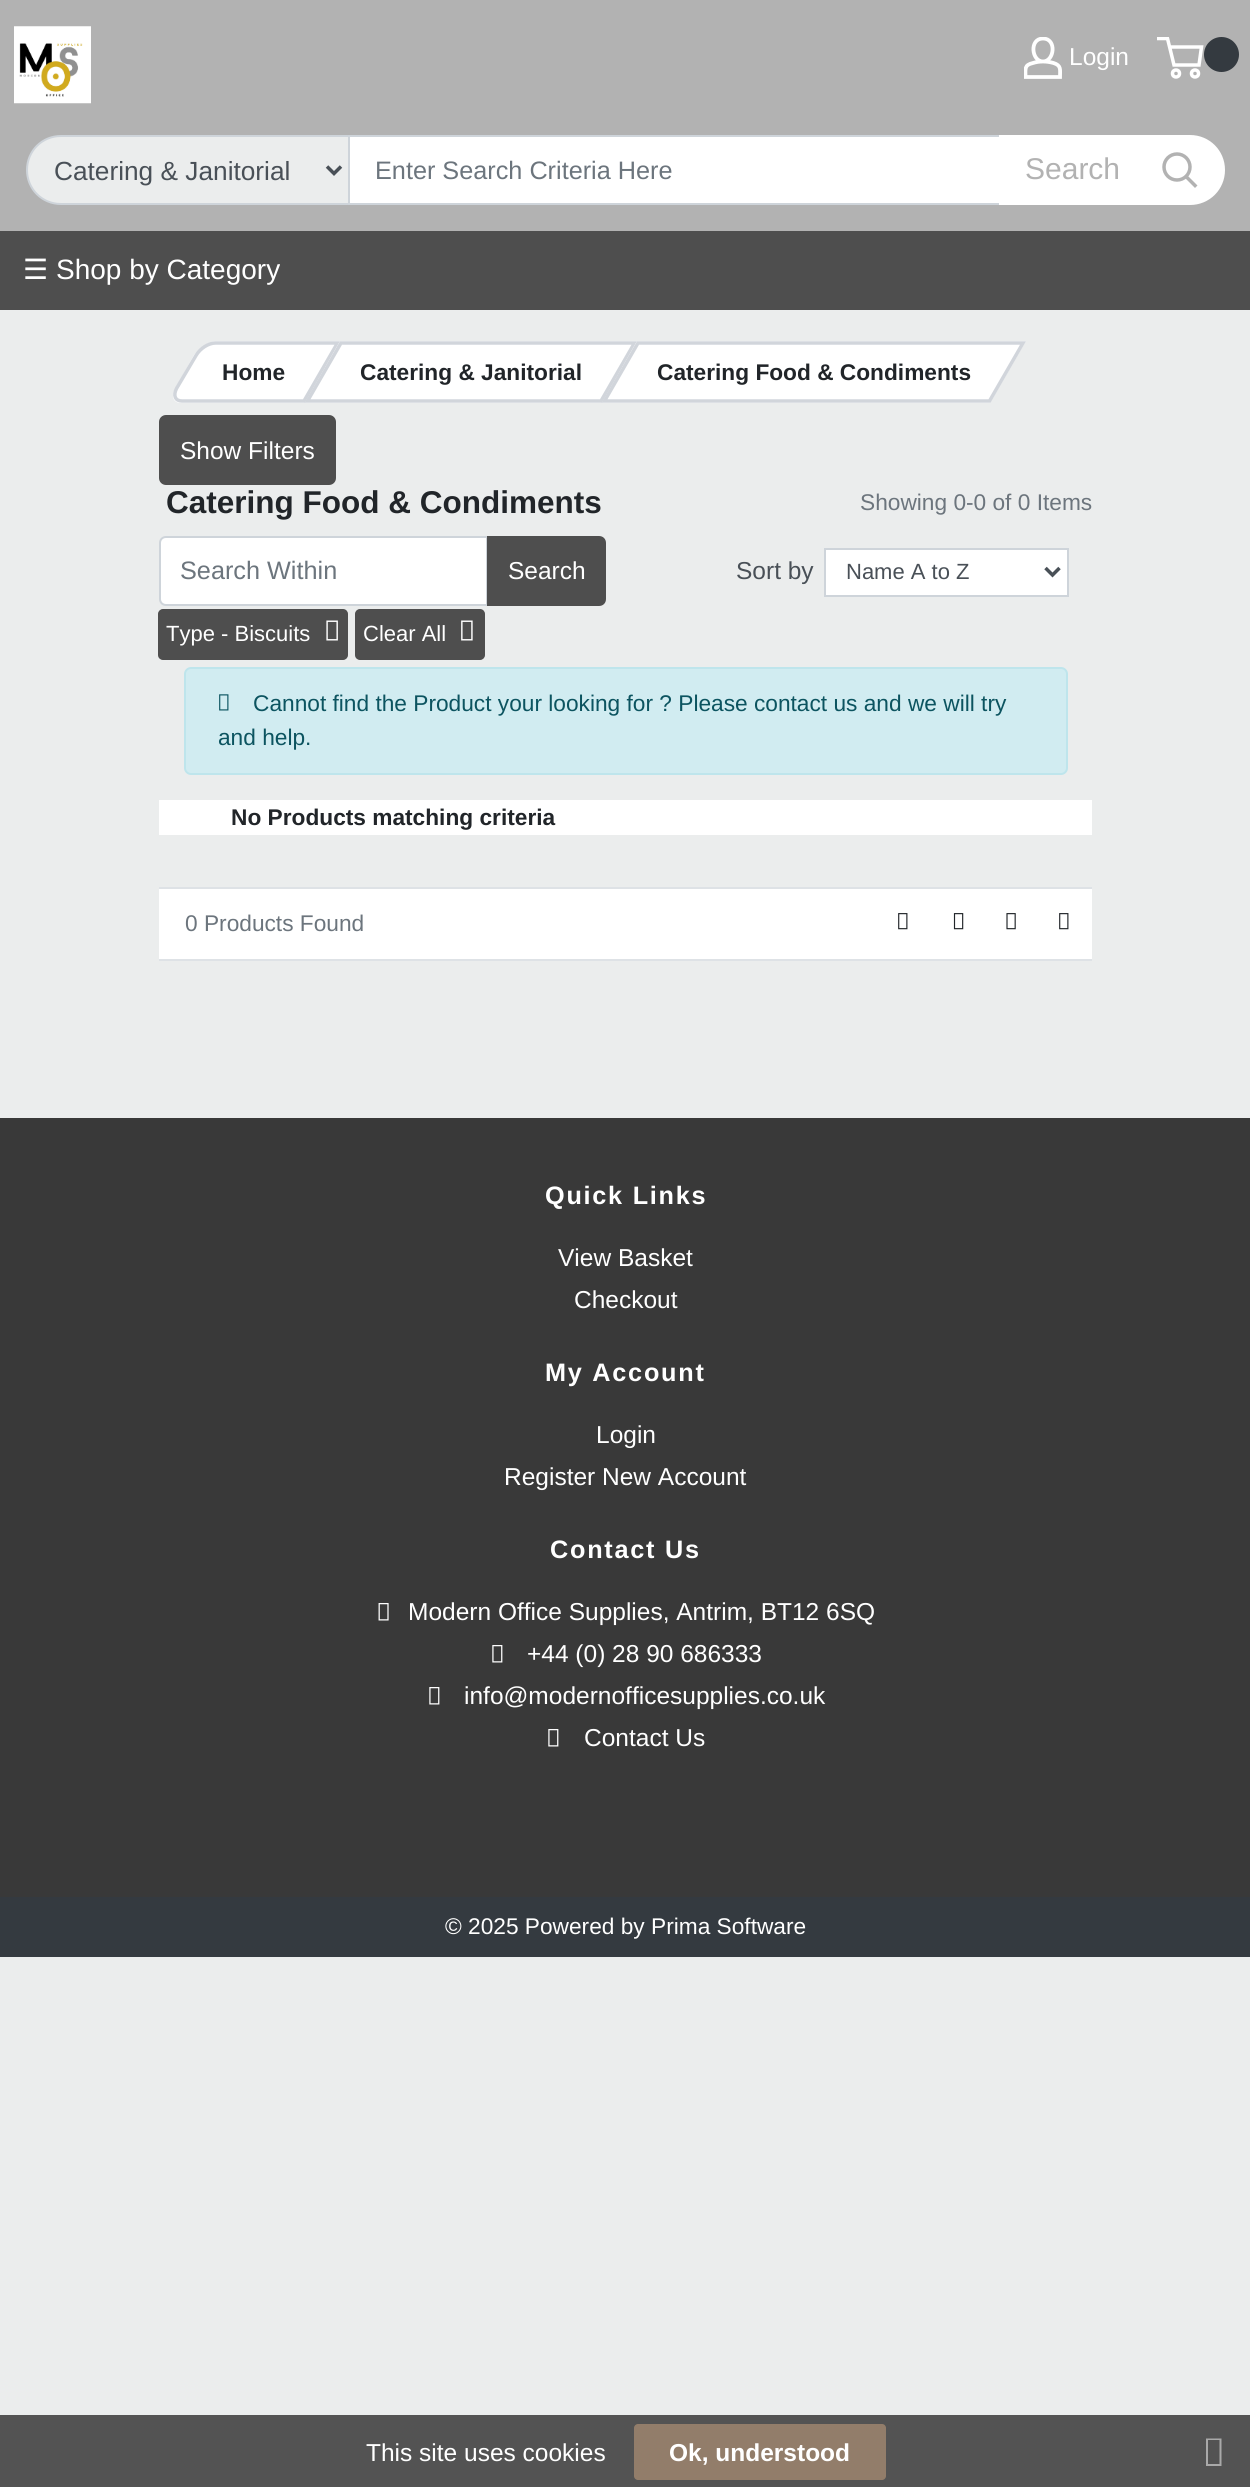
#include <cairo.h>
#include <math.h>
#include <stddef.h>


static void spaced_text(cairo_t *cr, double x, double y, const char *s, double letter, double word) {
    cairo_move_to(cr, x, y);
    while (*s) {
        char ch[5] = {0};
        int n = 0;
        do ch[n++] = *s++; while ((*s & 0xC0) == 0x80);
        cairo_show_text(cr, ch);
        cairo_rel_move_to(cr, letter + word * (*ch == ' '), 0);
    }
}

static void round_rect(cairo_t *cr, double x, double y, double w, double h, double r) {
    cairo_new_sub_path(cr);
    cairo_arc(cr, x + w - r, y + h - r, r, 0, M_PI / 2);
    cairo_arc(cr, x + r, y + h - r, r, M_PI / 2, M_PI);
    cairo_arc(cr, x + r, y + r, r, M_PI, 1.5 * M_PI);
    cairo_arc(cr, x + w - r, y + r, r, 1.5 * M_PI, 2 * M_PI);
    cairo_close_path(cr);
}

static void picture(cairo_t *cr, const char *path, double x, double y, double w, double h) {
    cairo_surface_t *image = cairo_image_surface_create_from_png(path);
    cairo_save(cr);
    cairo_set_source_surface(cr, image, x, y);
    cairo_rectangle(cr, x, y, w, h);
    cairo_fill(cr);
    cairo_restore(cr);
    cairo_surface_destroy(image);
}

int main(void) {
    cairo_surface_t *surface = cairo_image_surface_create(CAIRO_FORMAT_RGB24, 1250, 2487);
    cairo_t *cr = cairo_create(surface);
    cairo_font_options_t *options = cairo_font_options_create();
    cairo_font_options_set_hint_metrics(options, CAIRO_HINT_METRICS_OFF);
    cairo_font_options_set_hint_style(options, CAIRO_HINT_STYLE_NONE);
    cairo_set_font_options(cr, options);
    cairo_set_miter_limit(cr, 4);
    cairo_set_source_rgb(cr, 0.918, 0.929, 0.929);
    cairo_paint(cr);
    cairo_set_source_rgb(cr, 0.698, 0.698, 0.698);
    cairo_rectangle(cr, 0, 0, 1250, 231);
    cairo_fill(cr);
    cairo_save(cr);
    cairo_rectangle(cr, 1024, 37, 38, 42);
    cairo_clip(cr);
    cairo_new_path(cr);
    cairo_move_to(cr, 1043, 61.5);
    cairo_curve_to(cr, 1046.5, 61.5, 1050, 62, 1053.5, 63);
    cairo_curve_to(cr, 1061.5, 65.5, 1060, 69.5, 1060, 77);
    cairo_line_to(cr, 1025.5, 77);
    cairo_curve_to(cr, 1025.5, 69, 1024, 65, 1033, 63);
    cairo_curve_to(cr, 1036, 62, 1039.5, 61.5, 1043, 61.5);
    cairo_close_path(cr);
    cairo_move_to(cr, 1043, 61.5);
    cairo_curve_to(cr, 1031.5, 61.5, 1029, 38.5, 1043, 38.5);
    cairo_curve_to(cr, 1057, 38.5, 1054.5, 61.5, 1043, 61.5);
    cairo_close_path(cr);
    cairo_set_source_rgb(cr, 1, 1, 1);
    cairo_set_line_width(cr, 3.8);
    cairo_stroke(cr);
    cairo_restore(cr);
    cairo_select_font_face(cr, "Liberation Sans", CAIRO_FONT_SLANT_NORMAL, CAIRO_FONT_WEIGHT_NORMAL);
    cairo_set_font_size(cr, 24.5);
    cairo_set_source_rgb(cr, 1, 1, 1);
    cairo_move_to(cr, 1069, 65);
    cairo_show_text(cr, "Login");
    cairo_save(cr);
    cairo_rectangle(cr, 1157, 37, 47, 42);
    cairo_clip(cr);
    cairo_new_path(cr);
    cairo_move_to(cr, 1169.5, 47);
    cairo_line_to(cr, 1201.5, 47);
    cairo_line_to(cr, 1199, 65);
    cairo_line_to(cr, 1174, 65);
    cairo_line_to(cr, 1167.5, 38.5);
    cairo_line_to(cr, 1157, 38.5);
    cairo_set_line_width(cr, 3.5);
    cairo_stroke(cr);
    cairo_restore(cr);
    cairo_set_source_rgb(cr, 0.204, 0.227, 0.251);
    cairo_arc(cr, 1221.5, 54.5, 17.5, 0, 2 * M_PI);
    cairo_fill(cr);
    cairo_arc(cr, 1176, 73.5, 3.5, 0, 2 * M_PI);
    cairo_set_source_rgb(cr, 1, 1, 1);
    cairo_set_line_width(cr, 3.5);
    cairo_stroke(cr);
    cairo_arc(cr, 1195, 73.5, 3.5, 0, 2 * M_PI);
    cairo_stroke(cr);
    picture(cr, "img1.png", 14, 26, 77, 78);
    cairo_set_source_rgb(cr, 0.918, 0.929, 0.929);
    cairo_new_path(cr);
    cairo_move_to(cr, 61, 136);
    cairo_line_to(cr, 347.5, 136);
    cairo_curve_to(cr, 348.5, 136, 349, 136.5, 349, 137.5);
    cairo_line_to(cr, 349, 202.5);
    cairo_curve_to(cr, 349, 203.5, 348.5, 204, 347.5, 204);
    cairo_line_to(cr, 61, 204);
    cairo_curve_to(cr, 42, 204, 27, 189, 27, 170);
    cairo_curve_to(cr, 27, 151, 42, 136, 61, 136);
    cairo_close_path(cr);
    cairo_fill_preserve(cr);
    cairo_set_source_rgb(cr, 0.808, 0.831, 0.855);
    cairo_set_line_width(cr, 2);
    cairo_stroke(cr);
    cairo_new_path(cr);
    cairo_move_to(cr, 327, 166.5);
    cairo_line_to(cr, 334, 173.5);
    cairo_line_to(cr, 341, 166.5);
    cairo_set_source_rgb(cr, 0.286, 0.314, 0.341);
    cairo_set_line_width(cr, 3.5);
    cairo_stroke(cr);
    cairo_set_font_size(cr, 26.25);
    cairo_move_to(cr, 54, 180);
    cairo_show_text(cr, "Catering & Janitorial");
    cairo_set_source_rgb(cr, 1, 1, 1);
    cairo_rectangle(cr, 349, 136, 651, 68);
    cairo_fill_preserve(cr);
    cairo_set_source_rgb(cr, 0.808, 0.831, 0.855);
    cairo_set_line_width(cr, 2);
    cairo_stroke(cr);
    cairo_set_font_size(cr, 25.25);
    cairo_set_source_rgb(cr, 0.424, 0.459, 0.49);
    cairo_move_to(cr, 375, 179);
    cairo_show_text(cr, "Enter Search Criteria Here");
    cairo_set_source_rgb(cr, 1, 1, 1);
    cairo_new_path(cr);
    cairo_move_to(cr, 999, 135);
    cairo_line_to(cr, 1190, 135);
    cairo_curve_to(cr, 1209.5, 135, 1225, 150.5, 1225, 170);
    cairo_curve_to(cr, 1225, 189.5, 1209.5, 205, 1190, 205);
    cairo_line_to(cr, 999, 205);
    cairo_close_path(cr);
    cairo_fill(cr);
    cairo_set_font_size(cr, 30);
    cairo_set_source_rgb(cr, 0.698, 0.698, 0.698);
    cairo_move_to(cr, 1025, 179);
    cairo_show_text(cr, "Search");
    cairo_new_path(cr);
    cairo_move_to(cr, 1195, 185.5);
    cairo_line_to(cr, 1186.5, 177);
    cairo_set_line_width(cr, 3.5);
    cairo_set_line_cap(cr, CAIRO_LINE_CAP_SQUARE);
    cairo_stroke(cr);
    cairo_arc(cr, 1177, 167, 13, 0, 2 * M_PI);
    cairo_set_line_cap(cr, CAIRO_LINE_CAP_BUTT);
    cairo_stroke(cr);
    cairo_set_source_rgb(cr, 0.306, 0.306, 0.306);
    cairo_rectangle(cr, 0, 231, 1250, 79);
    cairo_fill(cr);
    cairo_select_font_face(cr, "DejaVu Sans", CAIRO_FONT_SLANT_NORMAL, CAIRO_FONT_WEIGHT_NORMAL);
    cairo_set_font_size(cr, 28);
    cairo_set_source_rgb(cr, 1, 1, 1);
    cairo_move_to(cr, 23, 279);
    cairo_show_text(cr, "☰");
    cairo_select_font_face(cr, "Liberation Sans", CAIRO_FONT_SLANT_NORMAL, CAIRO_FONT_WEIGHT_NORMAL);
    cairo_move_to(cr, 56, 279);
    cairo_show_text(cr, "Shop by Category");
    cairo_new_path(cr);
    cairo_move_to(cr, 216, 341);
    cairo_line_to(cr, 340, 341);
    cairo_line_to(cr, 305, 403);
    cairo_line_to(cr, 181, 403);
    cairo_curve_to(cr, 173, 403, 171, 396, 175, 389);
    cairo_line_to(cr, 194, 355);
    cairo_curve_to(cr, 199, 348, 209, 341, 216, 341);
    cairo_close_path(cr);
    cairo_fill(cr);
    cairo_new_path(cr);
    cairo_move_to(cr, 215.5, 343);
    cairo_line_to(cr, 337.5, 343);
    cairo_line_to(cr, 304, 401);
    cairo_line_to(cr, 182, 401);
    cairo_curve_to(cr, 175, 401, 173, 395.5, 176.5, 388.5);
    cairo_line_to(cr, 196, 355.5);
    cairo_curve_to(cr, 200, 348.5, 208.5, 343, 215.5, 343);
    cairo_close_path(cr);
    cairo_set_source_rgb(cr, 0.82, 0.835, 0.859);
    cairo_stroke(cr);
    cairo_select_font_face(cr, "Liberation Sans", CAIRO_FONT_SLANT_NORMAL, CAIRO_FONT_WEIGHT_BOLD);
    cairo_set_font_size(cr, 22.7);
    cairo_set_source_rgb(cr, 0.129, 0.145, 0.161);
    cairo_move_to(cr, 222, 380);
    cairo_show_text(cr, "Home");
    cairo_set_source_rgb(cr, 1, 1, 1);
    cairo_new_path(cr);
    cairo_move_to(cr, 340, 341);
    cairo_line_to(cr, 637, 341);
    cairo_line_to(cr, 602, 403);
    cairo_line_to(cr, 305, 403);
    cairo_close_path(cr);
    cairo_fill(cr);
    cairo_new_path(cr);
    cairo_move_to(cr, 341, 343);
    cairo_line_to(cr, 634.5, 343);
    cairo_line_to(cr, 601, 401);
    cairo_line_to(cr, 307.5, 401);
    cairo_close_path(cr);
    cairo_set_source_rgb(cr, 0.82, 0.835, 0.859);
    cairo_stroke(cr);
    cairo_set_source_rgb(cr, 0.129, 0.145, 0.161);
    cairo_move_to(cr, 360, 380);
    cairo_show_text(cr, "Catering & Janitorial");
    cairo_set_source_rgb(cr, 1, 1, 1);
    cairo_new_path(cr);
    cairo_move_to(cr, 637, 341);
    cairo_line_to(cr, 1026, 341);
    cairo_line_to(cr, 990, 403);
    cairo_line_to(cr, 602, 403);
    cairo_close_path(cr);
    cairo_fill(cr);
    cairo_new_path(cr);
    cairo_move_to(cr, 638, 343);
    cairo_line_to(cr, 1023, 343);
    cairo_line_to(cr, 989.5, 401);
    cairo_line_to(cr, 604.5, 401);
    cairo_close_path(cr);
    cairo_set_source_rgb(cr, 0.82, 0.835, 0.859);
    cairo_stroke(cr);
    cairo_set_source_rgb(cr, 0.129, 0.145, 0.161);
    cairo_move_to(cr, 657, 380);
    cairo_show_text(cr, "Catering Food & Condiments");
    cairo_set_source_rgb(cr, 0.306, 0.306, 0.306);
    round_rect(cr, 160, 416, 175, 68, 6);
    cairo_fill_preserve(cr);
    cairo_set_line_width(cr, 2);
    cairo_stroke(cr);
    cairo_select_font_face(cr, "Liberation Sans", CAIRO_FONT_SLANT_NORMAL, CAIRO_FONT_WEIGHT_NORMAL);
    cairo_set_font_size(cr, 24.5);
    cairo_set_source_rgb(cr, 1, 1, 1);
    cairo_move_to(cr, 180, 459);
    cairo_show_text(cr, "Show Filters");
    cairo_select_font_face(cr, "Liberation Sans", CAIRO_FONT_SLANT_NORMAL, CAIRO_FONT_WEIGHT_BOLD);
    cairo_set_font_size(cr, 31.5);
    cairo_set_source_rgb(cr, 0.129, 0.145, 0.161);
    cairo_move_to(cr, 166, 513);
    cairo_show_text(cr, "Catering Food & Condiments");
    cairo_select_font_face(cr, "Liberation Sans", CAIRO_FONT_SLANT_NORMAL, CAIRO_FONT_WEIGHT_NORMAL);
    cairo_set_font_size(cr, 22.7);
    cairo_set_source_rgb(cr, 0.424, 0.459, 0.49);
    cairo_move_to(cr, 860, 510);
    cairo_show_text(cr, "Showing 0-0 of 0 Items");
    cairo_set_source_rgb(cr, 1, 1, 1);
    cairo_new_path(cr);
    cairo_move_to(cr, 165, 537);
    cairo_line_to(cr, 487, 537);
    cairo_line_to(cr, 487, 604);
    cairo_line_to(cr, 165, 604);
    cairo_curve_to(cr, 163, 604, 161, 602, 161, 600);
    cairo_line_to(cr, 161, 541);
    cairo_curve_to(cr, 161, 539, 163, 537, 165, 537);
    cairo_close_path(cr);
    cairo_fill(cr);
    cairo_new_path(cr);
    cairo_move_to(cr, 166, 537);
    cairo_line_to(cr, 487, 537);
    cairo_line_to(cr, 487, 605);
    cairo_line_to(cr, 166, 605);
    cairo_curve_to(cr, 162.5, 605, 160, 602.5, 160, 599);
    cairo_line_to(cr, 160, 543);
    cairo_curve_to(cr, 160, 539.5, 162.5, 537, 166, 537);
    cairo_close_path(cr);
    cairo_set_source_rgb(cr, 0.808, 0.831, 0.855);
    cairo_stroke(cr);
    cairo_set_font_size(cr, 25.25);
    cairo_set_source_rgb(cr, 0.424, 0.459, 0.49);
    cairo_move_to(cr, 180, 579);
    cairo_show_text(cr, "Search Within");
    cairo_set_source_rgb(cr, 0.306, 0.306, 0.306);
    cairo_new_path(cr);
    cairo_move_to(cr, 488, 537);
    cairo_line_to(cr, 599, 537);
    cairo_curve_to(cr, 602.5, 537, 605, 539.5, 605, 543);
    cairo_line_to(cr, 605, 599);
    cairo_curve_to(cr, 605, 602.5, 602.5, 605, 599, 605);
    cairo_line_to(cr, 488, 605);
    cairo_close_path(cr);
    cairo_fill_preserve(cr);
    cairo_stroke(cr);
    cairo_set_font_size(cr, 24.5);
    cairo_set_source_rgb(cr, 1, 1, 1);
    cairo_move_to(cr, 508, 579);
    cairo_show_text(cr, "Search");
    cairo_set_source_rgb(cr, 0.286, 0.314, 0.341);
    cairo_move_to(cr, 736, 579);
    cairo_show_text(cr, "Sort by");
    cairo_set_source_rgb(cr, 1, 1, 1);
    cairo_rectangle(cr, 825, 549, 243, 47);
    cairo_fill_preserve(cr);
    cairo_set_source_rgb(cr, 0.808, 0.831, 0.855);
    cairo_stroke(cr);
    cairo_new_path(cr);
    cairo_move_to(cr, 1045.5, 568);
    cairo_line_to(cr, 1052.5, 575);
    cairo_line_to(cr, 1059.5, 568);
    cairo_set_source_rgb(cr, 0.286, 0.314, 0.341);
    cairo_set_line_width(cr, 3.5);
    cairo_stroke(cr);
    cairo_set_font_size(cr, 22);
    cairo_move_to(cr, 846, 579);
    cairo_show_text(cr, "Name A to Z");
    cairo_set_source_rgb(cr, 0.306, 0.306, 0.306);
    round_rect(cr, 159, 610, 188, 49, 4);
    cairo_fill_preserve(cr);
    cairo_set_line_width(cr, 2);
    cairo_stroke(cr);
    cairo_set_source_rgb(cr, 1, 1, 1);
    cairo_move_to(cr, 166, 641);
    cairo_show_text(cr, "Type - Biscuits");
    picture(cr, "img2.png", 326, 620, 12, 21);
    cairo_set_source_rgb(cr, 0.306, 0.306, 0.306);
    round_rect(cr, 356, 610, 128, 49, 4);
    cairo_fill_preserve(cr);
    cairo_stroke(cr);
    cairo_set_source_rgb(cr, 1, 1, 1);
    cairo_move_to(cr, 363, 641);
    cairo_show_text(cr, "Clear All");
    picture(cr, "img3.png", 461, 620, 12, 21);
    cairo_set_source_rgb(cr, 0.82, 0.925, 0.945);
    round_rect(cr, 185, 668, 882, 106, 6);
    cairo_fill_preserve(cr);
    cairo_set_source_rgb(cr, 0.745, 0.898, 0.922);
    cairo_stroke(cr);
    picture(cr, "img4.png", 219, 694, 10, 17);
    cairo_set_font_size(cr, 22.7);
    cairo_set_source_rgb(cr, 0.047, 0.329, 0.376);
    cairo_move_to(cr, 253, 711);
    cairo_show_text(cr, "Cannot find the Product your looking for ? Please contact us and we will try");
    cairo_move_to(cr, 218, 745);
    cairo_show_text(cr, "and help.");
    cairo_set_source_rgb(cr, 1, 1, 1);
    cairo_rectangle(cr, 159, 800, 933, 35);
    cairo_fill(cr);
    cairo_select_font_face(cr, "Liberation Sans", CAIRO_FONT_SLANT_NORMAL, CAIRO_FONT_WEIGHT_BOLD);
    cairo_set_source_rgb(cr, 0.129, 0.145, 0.161);
    cairo_move_to(cr, 231, 825);
    cairo_show_text(cr, "No Products matching criteria");
    cairo_set_source_rgb(cr, 1, 1, 1);
    cairo_rectangle(cr, 159, 889, 933, 70);
    cairo_fill(cr);
    cairo_set_source_rgb(cr, 0.871, 0.886, 0.902);
    cairo_rectangle(cr, 159, 887, 933, 2);
    cairo_fill(cr);
    cairo_rectangle(cr, 159, 959, 933, 2);
    cairo_fill(cr);
    cairo_select_font_face(cr, "Liberation Sans", CAIRO_FONT_SLANT_NORMAL, CAIRO_FONT_WEIGHT_NORMAL);
    cairo_set_source_rgb(cr, 0.424, 0.459, 0.49);
    cairo_move_to(cr, 185, 931);
    cairo_show_text(cr, "0 Products Found");
    picture(cr, "img5.png", 898, 913, 10, 17);
    picture(cr, "img6.png", 953, 913, 11, 17);
    picture(cr, "img7.png", 1006, 913, 10, 17);
    picture(cr, "img5.png", 1059, 913, 10, 17);
    cairo_set_source_rgb(cr, 0.224, 0.224, 0.224);
    cairo_rectangle(cr, 0, 1118, 1250, 779);
    cairo_fill(cr);
    cairo_select_font_face(cr, "Liberation Sans", CAIRO_FONT_SLANT_NORMAL, CAIRO_FONT_WEIGHT_BOLD);
    cairo_set_font_size(cr, 25.25);
    cairo_set_source_rgb(cr, 1, 1, 1);
    spaced_text(cr, 545, 1204, "Quick Links", 1.75, 0);
    cairo_select_font_face(cr, "Liberation Sans", CAIRO_FONT_SLANT_NORMAL, CAIRO_FONT_WEIGHT_NORMAL);
    cairo_set_font_size(cr, 24.5);
    cairo_move_to(cr, 558, 1266);
    cairo_show_text(cr, "View Basket");
    cairo_move_to(cr, 574, 1308);
    cairo_show_text(cr, "Checkout");
    cairo_select_font_face(cr, "Liberation Sans", CAIRO_FONT_SLANT_NORMAL, CAIRO_FONT_WEIGHT_BOLD);
    cairo_set_font_size(cr, 25.25);
    spaced_text(cr, 545, 1381, "My Account", 1.75, 0);
    cairo_select_font_face(cr, "Liberation Sans", CAIRO_FONT_SLANT_NORMAL, CAIRO_FONT_WEIGHT_NORMAL);
    cairo_set_font_size(cr, 24.5);
    cairo_move_to(cr, 596, 1443);
    cairo_show_text(cr, "Login");
    cairo_move_to(cr, 504, 1485);
    cairo_show_text(cr, "Register New Account");
    cairo_select_font_face(cr, "Liberation Sans", CAIRO_FONT_SLANT_NORMAL, CAIRO_FONT_WEIGHT_BOLD);
    cairo_set_font_size(cr, 25.25);
    spaced_text(cr, 550, 1558, "Contact Us", 1.75, 0);
    picture(cr, "img8.png", 378, 1603, 11, 18);
    cairo_select_font_face(cr, "Liberation Sans", CAIRO_FONT_SLANT_NORMAL, CAIRO_FONT_WEIGHT_NORMAL);
    cairo_set_font_size(cr, 24.5);
    cairo_move_to(cr, 408, 1620);
    cairo_show_text(cr, "Modern Office Supplies, Antrim, BT12 6SQ");
    picture(cr, "img9.png", 492, 1645, 11, 18);
    cairo_move_to(cr, 527, 1662);
    cairo_show_text(cr, "+44 (0) 28 90 686333");
    picture(cr, "img9.png", 429, 1687, 11, 18);
    cairo_move_to(cr, 464, 1704);
    cairo_show_text(cr, "info@modernofficesupplies.co.uk");
    picture(cr, "img9.png", 548, 1729, 11, 18);
    cairo_move_to(cr, 584, 1746);
    cairo_show_text(cr, "Contact Us");
    cairo_set_source_rgb(cr, 0.204, 0.227, 0.251);
    cairo_rectangle(cr, 0, 1897, 1250, 60);
    cairo_fill(cr);
    cairo_set_font_size(cr, 22.7);
    cairo_set_source_rgb(cr, 1, 1, 1);
    cairo_move_to(cr, 445, 1934);
    cairo_show_text(cr, "© 2025 Powered by Prima Software");
    cairo_set_source_rgb(cr, 0.325, 0.325, 0.325);
    cairo_rectangle(cr, 0, 2415, 1250, 72);
    cairo_fill(cr);
    cairo_set_font_size(cr, 24.5);
    cairo_set_source_rgb(cr, 1, 1, 1);
    cairo_move_to(cr, 366, 2461);
    cairo_show_text(cr, "This site uses cookies");
    cairo_set_source_rgb(cr, 0.573, 0.49, 0.416);
    round_rect(cr, 634, 2424, 252, 56, 4);
    cairo_fill(cr);
    cairo_select_font_face(cr, "Liberation Sans", CAIRO_FONT_SLANT_NORMAL, CAIRO_FONT_WEIGHT_BOLD);
    cairo_set_source_rgb(cr, 1, 1, 1);
    cairo_move_to(cr, 669, 2461);
    cairo_show_text(cr, "Ok, understood");
    cairo_set_source_rgb(cr, 0.663, 0.663, 0.663);
    cairo_new_path(cr);
    cairo_move_to(cr, 1206, 2466);
    cairo_line_to(cr, 1206, 2438.5);
    cairo_line_to(cr, 1221.5, 2438.5);
    cairo_line_to(cr, 1221.5, 2466);
    cairo_close_path(cr);
    cairo_move_to(cr, 1208, 2464);
    cairo_line_to(cr, 1219.5, 2464);
    cairo_line_to(cr, 1219.5, 2440);
    cairo_line_to(cr, 1208, 2440);
    cairo_close_path(cr);
    cairo_fill(cr);
    cairo_surface_write_to_png(surface, "page.png");
    cairo_font_options_destroy(options);
    cairo_destroy(cr);
    cairo_surface_destroy(surface);
    return 0;
}
